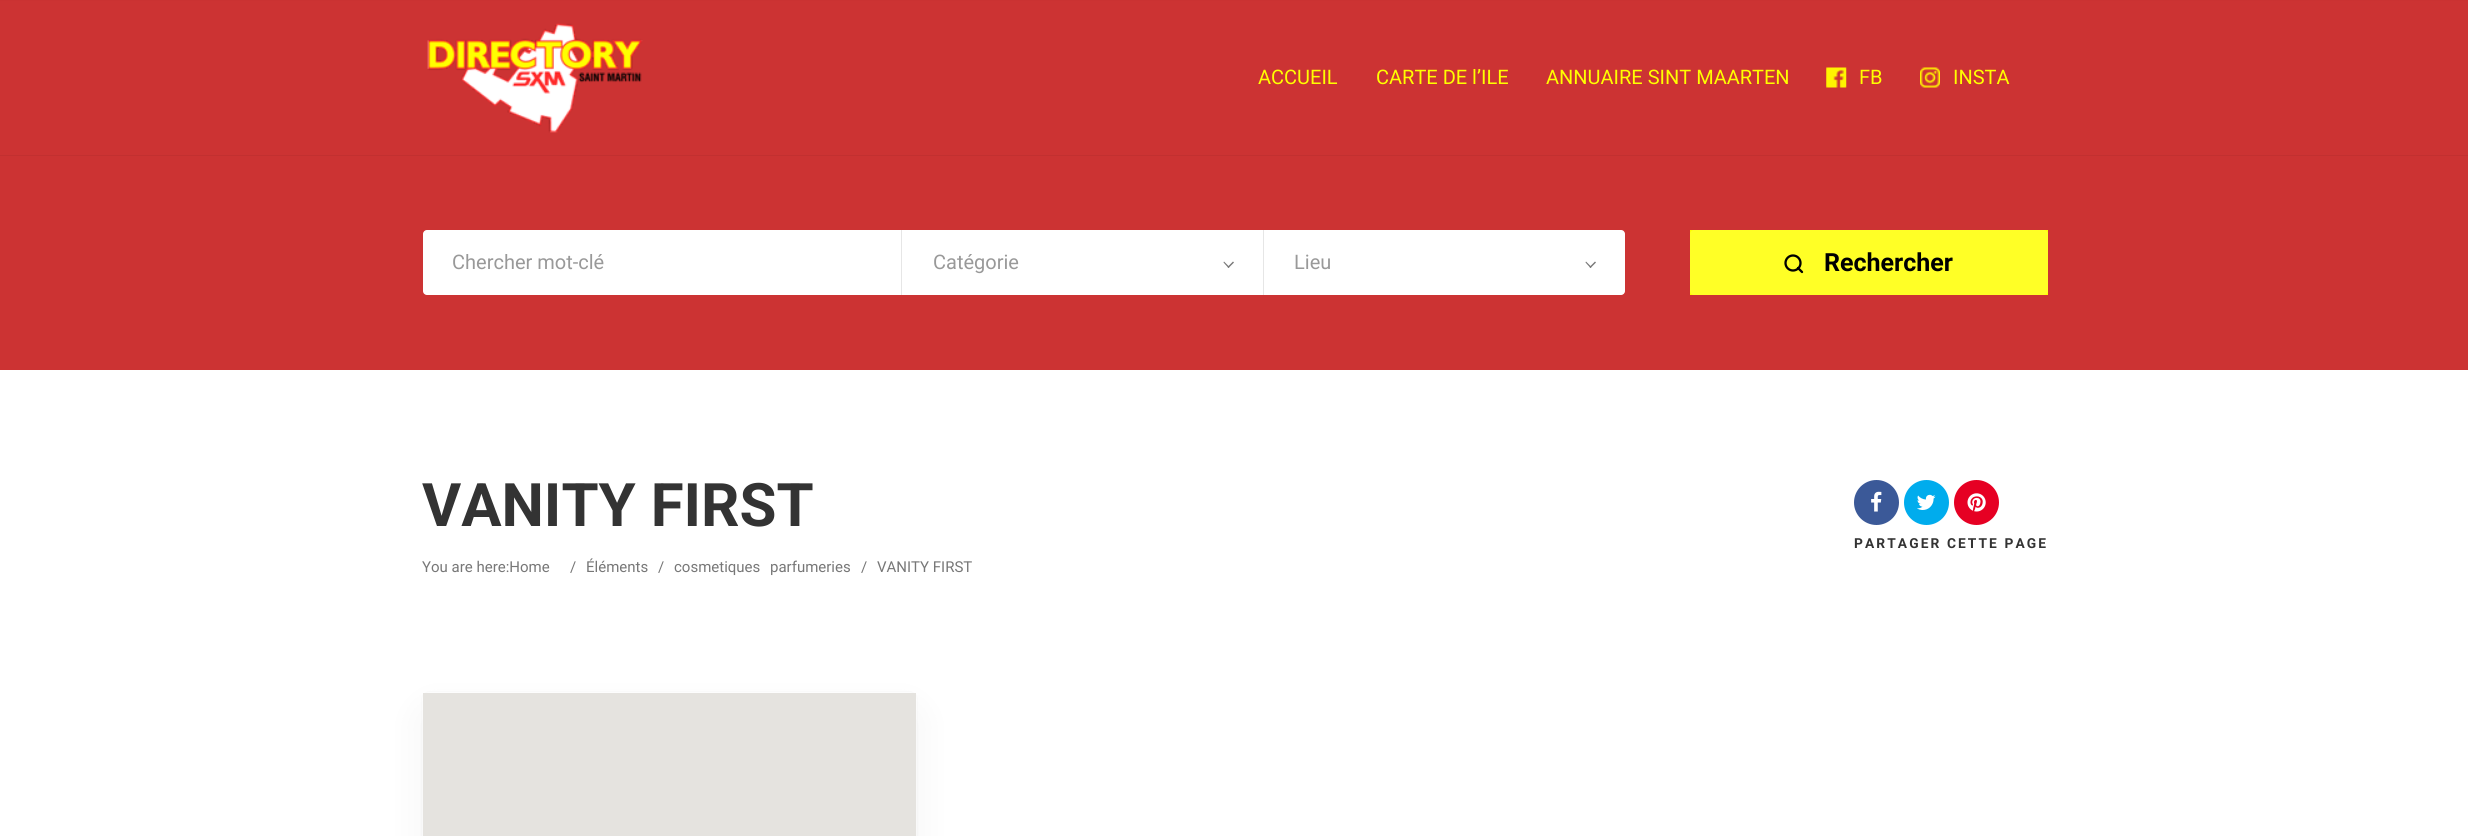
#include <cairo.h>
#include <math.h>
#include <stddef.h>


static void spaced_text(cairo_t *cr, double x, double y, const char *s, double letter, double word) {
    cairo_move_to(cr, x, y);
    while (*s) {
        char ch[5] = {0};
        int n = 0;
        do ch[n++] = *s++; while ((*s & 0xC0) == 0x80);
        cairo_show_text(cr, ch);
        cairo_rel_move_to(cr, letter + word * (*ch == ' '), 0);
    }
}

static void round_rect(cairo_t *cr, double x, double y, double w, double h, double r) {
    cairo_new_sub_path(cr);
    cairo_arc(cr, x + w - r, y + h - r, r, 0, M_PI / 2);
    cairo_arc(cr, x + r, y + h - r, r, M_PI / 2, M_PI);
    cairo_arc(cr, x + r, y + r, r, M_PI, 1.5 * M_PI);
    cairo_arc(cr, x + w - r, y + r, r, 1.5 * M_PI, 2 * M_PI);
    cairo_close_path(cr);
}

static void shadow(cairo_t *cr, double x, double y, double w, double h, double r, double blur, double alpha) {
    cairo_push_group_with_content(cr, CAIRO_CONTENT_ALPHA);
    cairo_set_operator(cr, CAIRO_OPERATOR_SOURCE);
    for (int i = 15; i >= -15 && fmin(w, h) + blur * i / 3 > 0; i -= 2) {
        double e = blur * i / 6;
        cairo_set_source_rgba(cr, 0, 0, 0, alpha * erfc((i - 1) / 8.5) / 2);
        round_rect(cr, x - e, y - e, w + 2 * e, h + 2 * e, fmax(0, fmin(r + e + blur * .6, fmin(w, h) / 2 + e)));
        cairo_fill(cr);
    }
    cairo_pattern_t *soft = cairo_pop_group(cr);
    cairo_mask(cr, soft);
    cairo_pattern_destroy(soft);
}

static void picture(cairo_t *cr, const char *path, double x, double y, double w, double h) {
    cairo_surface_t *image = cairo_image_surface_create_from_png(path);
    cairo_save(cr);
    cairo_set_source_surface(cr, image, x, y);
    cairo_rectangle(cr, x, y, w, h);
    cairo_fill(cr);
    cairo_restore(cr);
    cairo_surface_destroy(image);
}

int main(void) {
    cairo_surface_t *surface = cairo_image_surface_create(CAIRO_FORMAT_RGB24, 2468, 836);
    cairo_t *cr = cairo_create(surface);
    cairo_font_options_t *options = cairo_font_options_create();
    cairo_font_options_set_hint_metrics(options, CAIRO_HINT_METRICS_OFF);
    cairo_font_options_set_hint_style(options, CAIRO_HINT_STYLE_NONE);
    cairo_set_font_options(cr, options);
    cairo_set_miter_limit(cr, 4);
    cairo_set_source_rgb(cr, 1, 1, 1);
    cairo_paint(cr);
    cairo_set_source_rgb(cr, 0.792, 0.196, 0.196);
    cairo_new_path(cr);
    cairo_move_to(cr, 0, 0);
    cairo_line_to(cr, 0, 1);
    cairo_line_to(cr, 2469, 1);
    cairo_line_to(cr, 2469, -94);
    cairo_line_to(cr, 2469, 0);
    cairo_close_path(cr);
    cairo_fill(cr);
    cairo_set_source_rgb(cr, 0.761, 0.188, 0.188);
    cairo_new_path(cr);
    cairo_move_to(cr, 0, 155);
    cairo_line_to(cr, 0, 156);
    cairo_line_to(cr, 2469, 156);
    cairo_line_to(cr, 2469, 1);
    cairo_line_to(cr, 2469, 155);
    cairo_close_path(cr);
    cairo_fill(cr);
    cairo_set_source_rgb(cr, 0.8, 0.2, 0.2);
    cairo_rectangle(cr, 0, 1, 2468, 154);
    cairo_fill(cr);
    picture(cr, "img1.png", 427, 23, 216, 110);
    cairo_select_font_face(cr, "Roboto", CAIRO_FONT_SLANT_NORMAL, CAIRO_FONT_WEIGHT_NORMAL);
    cairo_set_font_size(cr, 20);
    cairo_set_source_rgb(cr, 1, 1, 0);
    cairo_move_to(cr, 1258, 84);
    cairo_show_text(cr, "ACCUEIL");
    cairo_move_to(cr, 1376, 84);
    cairo_show_text(cr, "CARTE DE l’ILE");
    cairo_move_to(cr, 1546, 84);
    cairo_show_text(cr, "ANNUAIRE SINT MAARTEN");
    picture(cr, "img2.png", 1826, 67, 21, 21);
    cairo_move_to(cr, 1859, 84);
    cairo_show_text(cr, "FB");
    picture(cr, "img3.png", 1920, 67, 20, 21);
    cairo_move_to(cr, 1953, 84);
    cairo_show_text(cr, "INSTA");
    cairo_set_source_rgb(cr, 0.8, 0.2, 0.2);
    cairo_rectangle(cr, 0, 156, 2468, 214);
    cairo_fill(cr);
    cairo_set_source_rgb(cr, 1, 1, 1);
    round_rect(cr, 423, 230, 1202, 65, 4);
    cairo_fill(cr);
    cairo_set_source_rgb(cr, 0.902, 0.902, 0.902);
    cairo_rectangle(cr, 901, 230, 1, 65);
    cairo_fill(cr);
    cairo_set_source_rgb(cr, 0.6, 0.6, 0.6);
    cairo_move_to(cr, 452, 269);
    cairo_show_text(cr, "Chercher mot-clé");
    cairo_set_source_rgb(cr, 0.902, 0.902, 0.902);
    cairo_rectangle(cr, 1263, 230, 1, 65);
    cairo_fill(cr);
    cairo_set_source_rgb(cr, 0.6, 0.6, 0.6);
    cairo_move_to(cr, 933, 269);
    cairo_show_text(cr, "Catégorie");
    cairo_set_source_rgb(cr, 0.467, 0.467, 0.467);
    cairo_new_path(cr);
    cairo_move_to(cr, 1233, 261.5);
    cairo_line_to(cr, 1234, 262.5);
    cairo_line_to(cr, 1228.5, 268);
    cairo_line_to(cr, 1227.5, 267);
    cairo_close_path(cr);
    cairo_fill(cr);
    cairo_new_path(cr);
    cairo_move_to(cr, 1224, 261.5);
    cairo_line_to(cr, 1229.5, 267);
    cairo_line_to(cr, 1228.5, 268);
    cairo_line_to(cr, 1223.5, 262.5);
    cairo_close_path(cr);
    cairo_fill(cr);
    cairo_set_source_rgb(cr, 0.6, 0.6, 0.6);
    cairo_move_to(cr, 1294, 269);
    cairo_show_text(cr, "Lieu");
    cairo_set_source_rgb(cr, 0.467, 0.467, 0.467);
    cairo_new_path(cr);
    cairo_move_to(cr, 1595, 261.5);
    cairo_line_to(cr, 1596, 262.5);
    cairo_line_to(cr, 1590.5, 268);
    cairo_line_to(cr, 1589.5, 267);
    cairo_close_path(cr);
    cairo_fill(cr);
    cairo_new_path(cr);
    cairo_move_to(cr, 1586, 261.5);
    cairo_line_to(cr, 1591.5, 267);
    cairo_line_to(cr, 1590.5, 268);
    cairo_line_to(cr, 1585.5, 262.5);
    cairo_close_path(cr);
    cairo_fill(cr);
    cairo_set_source_rgb(cr, 1, 1, 0);
    cairo_rectangle(cr, 1690, 230, 358, 65);
    cairo_fill(cr);
    cairo_set_source_rgb(cr, 1, 1, 0.149);
    round_rect(cr, 1690, 230, 358, 65, 4);
    cairo_fill(cr);
    cairo_arc(cr, 1793, 263, 7.5, 0, 2 * M_PI);
    cairo_set_source_rgb(cr, 0, 0, 0);
    cairo_set_line_width(cr, 2.3);
    cairo_stroke(cr);
    cairo_new_path(cr);
    cairo_move_to(cr, 1802, 272);
    cairo_line_to(cr, 1798, 268);
    cairo_set_line_cap(cr, CAIRO_LINE_CAP_ROUND);
    cairo_set_line_join(cr, CAIRO_LINE_JOIN_ROUND);
    cairo_stroke(cr);
    cairo_select_font_face(cr, "Roboto", CAIRO_FONT_SLANT_NORMAL, CAIRO_FONT_WEIGHT_BOLD);
    cairo_set_font_size(cr, 25);
    cairo_move_to(cr, 1824, 271);
    cairo_show_text(cr, "Rechercher");
    cairo_set_font_size(cr, 60);
    cairo_set_source_rgb(cr, 0.2, 0.2, 0.2);
    cairo_move_to(cr, 422, 526);
    cairo_show_text(cr, "VANITY FIRST");
    cairo_select_font_face(cr, "Roboto", CAIRO_FONT_SLANT_NORMAL, CAIRO_FONT_WEIGHT_NORMAL);
    cairo_set_font_size(cr, 15);
    cairo_set_source_rgb(cr, 0.467, 0.467, 0.467);
    cairo_move_to(cr, 422, 572);
    cairo_show_text(cr, "You are here:Home");
    cairo_move_to(cr, 570, 572);
    cairo_show_text(cr, "/");
    cairo_move_to(cr, 586, 572);
    cairo_show_text(cr, "Éléments");
    cairo_move_to(cr, 658, 572);
    cairo_show_text(cr, "/");
    cairo_move_to(cr, 674, 572);
    cairo_show_text(cr, "cosmetiques");
    cairo_move_to(cr, 770, 572);
    cairo_show_text(cr, "parfumeries");
    cairo_move_to(cr, 861, 572);
    cairo_show_text(cr, "/");
    cairo_move_to(cr, 877, 572);
    cairo_show_text(cr, "VANITY FIRST");
    cairo_set_source_rgb(cr, 0.231, 0.349, 0.596);
    cairo_new_path(cr);
    cairo_arc(cr, 1876.5, 502.5, 22.5, 0, 2 * M_PI);
    cairo_fill(cr);
    picture(cr, "img4.png", 1871, 491, 11, 21);
    cairo_set_source_rgb(cr, 0, 0.675, 0.929);
    cairo_arc(cr, 1926.5, 502.5, 22.5, 0, 2 * M_PI);
    cairo_fill(cr);
    picture(cr, "img5.png", 1917, 494, 19, 16);
    cairo_set_source_rgb(cr, 0.902, 0, 0.137);
    cairo_arc(cr, 1976.5, 502.5, 22.5, 0, 2 * M_PI);
    cairo_fill(cr);
    picture(cr, "img6.png", 1967, 493, 19, 19);
    cairo_select_font_face(cr, "Roboto", CAIRO_FONT_SLANT_NORMAL, CAIRO_FONT_WEIGHT_BOLD);
    cairo_set_font_size(cr, 13.75);
    cairo_set_source_rgb(cr, 0.2, 0.2, 0.2);
    spaced_text(cr, 1854, 548, "PARTAGER CETTE PAGE", 2.1, 0);
    round_rect(cr, 421.5, 691.5, 496, 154, 8.5);
    cairo_set_source_rgb(cr, 0.988, 0.988, 0.988);
    cairo_set_line_width(cr, 1);
    cairo_set_line_cap(cr, CAIRO_LINE_CAP_BUTT);
    cairo_set_line_join(cr, CAIRO_LINE_JOIN_MITER);
    cairo_stroke(cr);
    cairo_set_source_rgb(cr, 0, 0, 0);
    shadow(cr, 423, 711, 493, 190, 8, 19, 0.05);
    cairo_set_source_rgb(cr, 0.898, 0.89, 0.875);
    cairo_rectangle(cr, 423, 693, 493, 143);
    cairo_fill(cr);
    cairo_surface_write_to_png(surface, "page.png");
    cairo_font_options_destroy(options);
    cairo_destroy(cr);
    cairo_surface_destroy(surface);
    return 0;
}
